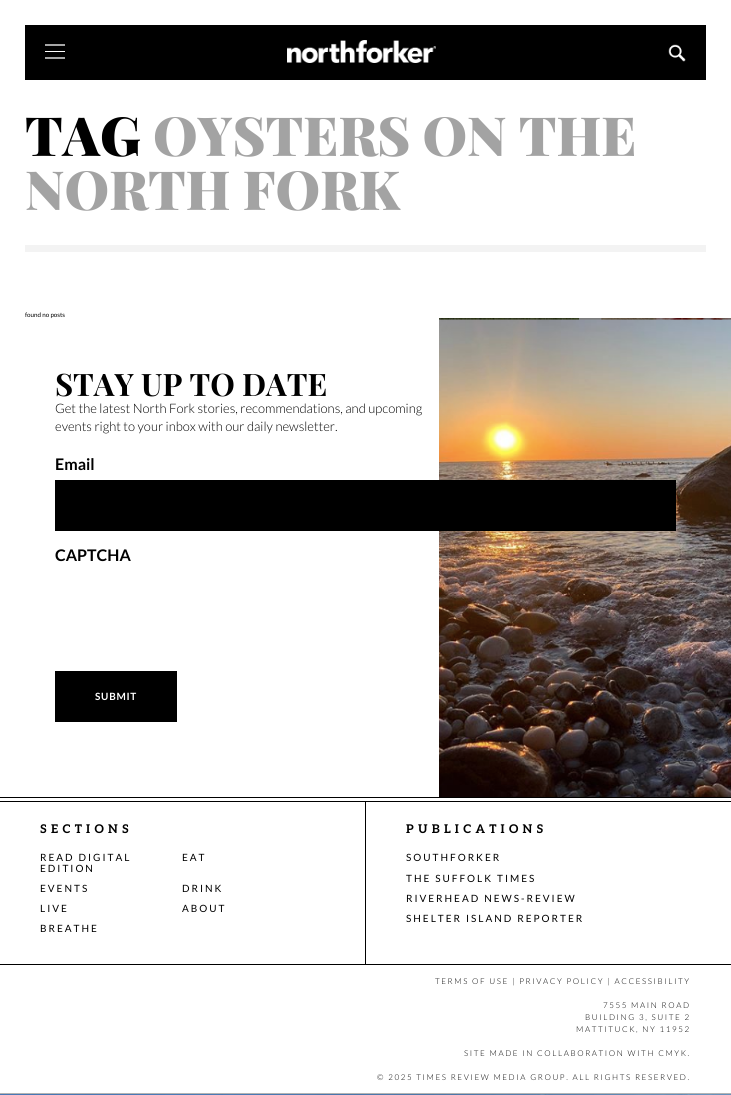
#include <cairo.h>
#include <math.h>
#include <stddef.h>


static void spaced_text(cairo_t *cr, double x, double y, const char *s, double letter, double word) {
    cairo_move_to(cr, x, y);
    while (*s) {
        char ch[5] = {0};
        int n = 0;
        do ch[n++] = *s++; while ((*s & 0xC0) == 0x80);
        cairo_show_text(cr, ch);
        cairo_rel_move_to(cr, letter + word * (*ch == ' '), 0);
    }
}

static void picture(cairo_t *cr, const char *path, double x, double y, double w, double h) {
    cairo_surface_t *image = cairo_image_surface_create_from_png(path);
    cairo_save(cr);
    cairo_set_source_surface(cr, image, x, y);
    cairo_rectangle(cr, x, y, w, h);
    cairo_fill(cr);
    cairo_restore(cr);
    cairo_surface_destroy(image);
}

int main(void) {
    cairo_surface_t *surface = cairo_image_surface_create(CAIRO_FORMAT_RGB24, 731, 1095);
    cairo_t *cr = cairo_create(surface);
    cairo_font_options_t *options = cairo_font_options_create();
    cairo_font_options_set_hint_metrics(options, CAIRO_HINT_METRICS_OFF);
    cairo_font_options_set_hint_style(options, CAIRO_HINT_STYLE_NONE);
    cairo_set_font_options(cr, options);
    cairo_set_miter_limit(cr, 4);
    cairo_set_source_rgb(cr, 1, 1, 1);
    cairo_paint(cr);
    cairo_set_source_rgb(cr, 0, 0, 0);
    cairo_rectangle(cr, 25, 25, 681, 55);
    cairo_fill(cr);
    cairo_new_path(cr);
    cairo_move_to(cr, 45, 45);
    cairo_line_to(cr, 65, 45);
    cairo_set_source_rgb(cr, 1, 1, 1);
    cairo_set_line_width(cr, 1.3);
    cairo_stroke(cr);
    cairo_rectangle(cr, 45, 51, 20, 1);
    cairo_fill(cr);
    cairo_new_path(cr);
    cairo_move_to(cr, 45, 58);
    cairo_line_to(cr, 65, 58);
    cairo_stroke(cr);
    picture(cr, "img1.png", 287, 40, 149, 23);
    picture(cr, "img2.png", 668, 44, 18, 18);
    cairo_set_source_rgb(cr, 0.953, 0.953, 0.953);
    cairo_rectangle(cr, 25, 245, 681, 7);
    cairo_fill(cr);
    cairo_select_font_face(cr, "Playfair Display Black", CAIRO_FONT_SLANT_NORMAL, CAIRO_FONT_WEIGHT_NORMAL);
    cairo_set_font_size(cr, 54);
    cairo_set_source_rgb(cr, 0, 0, 0);
    cairo_move_to(cr, 25, 156);
    cairo_show_text(cr, "TAG");
    cairo_set_source_rgb(cr, 0.639, 0.639, 0.639);
    cairo_move_to(cr, 153, 156);
    cairo_show_text(cr, "OYSTERS ON THE");
    cairo_move_to(cr, 25, 210);
    cairo_show_text(cr, "NORTH FORK");
    cairo_select_font_face(cr, "Lato", CAIRO_FONT_SLANT_NORMAL, CAIRO_FONT_WEIGHT_NORMAL);
    cairo_set_font_size(cr, 6.25);
    cairo_set_source_rgb(cr, 0, 0, 0);
    cairo_move_to(cr, 25, 317);
    cairo_show_text(cr, "found no posts");
    cairo_select_font_face(cr, "Playfair Display", CAIRO_FONT_SLANT_NORMAL, CAIRO_FONT_WEIGHT_BOLD);
    cairo_set_font_size(cr, 31);
    cairo_move_to(cr, 55, 396);
    cairo_show_text(cr, "STAY UP TO DATE");
    cairo_select_font_face(cr, "Lato Light", CAIRO_FONT_SLANT_NORMAL, CAIRO_FONT_WEIGHT_NORMAL);
    cairo_set_font_size(cr, 13);
    cairo_move_to(cr, 55, 413);
    cairo_show_text(cr, "Get the latest North Fork stories, recommendations, and upcoming");
    cairo_move_to(cr, 55, 431);
    cairo_show_text(cr, "events right to your inbox with our daily newsletter.");
    cairo_select_font_face(cr, "Lato", CAIRO_FONT_SLANT_NORMAL, CAIRO_FONT_WEIGHT_BOLD);
    cairo_set_font_size(cr, 16);
    cairo_move_to(cr, 55, 470);
    cairo_show_text(cr, "Email");
    picture(cr, "img3.png", 439, 318, 292, 479);
    cairo_rectangle(cr, 55, 480, 621, 51);
    cairo_fill(cr);
    cairo_move_to(cr, 55, 561);
    cairo_show_text(cr, "CAPTCHA");
    cairo_rectangle(cr, 55, 671, 122, 51);
    cairo_fill(cr);
    cairo_set_font_size(cr, 10);
    cairo_set_source_rgb(cr, 1, 1, 1);
    spaced_text(cr, 95, 700, "SUBMIT", 0.75, 0);
    cairo_set_source_rgb(cr, 0, 0, 0);
    cairo_rectangle(cr, 0, 797, 731, 1);
    cairo_fill(cr);
    cairo_rectangle(cr, 0, 801, 731, 1);
    cairo_fill(cr);
    cairo_rectangle(cr, 365, 802, 1, 162);
    cairo_fill(cr);
    cairo_select_font_face(cr, "Aleo", CAIRO_FONT_SLANT_NORMAL, CAIRO_FONT_WEIGHT_BOLD);
    cairo_set_font_size(cr, 12);
    spaced_text(cr, 40, 833, "SECTIONS", 4.25, 0);
    cairo_select_font_face(cr, "Lato", CAIRO_FONT_SLANT_NORMAL, CAIRO_FONT_WEIGHT_NORMAL);
    cairo_set_font_size(cr, 10);
    spaced_text(cr, 40, 861, "READ DIGITAL", 2, 0);
    spaced_text(cr, 40, 872, "EDITION", 2, 0);
    spaced_text(cr, 182, 861, "EAT", 2, 0);
    spaced_text(cr, 40, 892, "EVENTS", 2, 0);
    spaced_text(cr, 182, 892, "DRINK", 2, 0);
    spaced_text(cr, 40, 912, "LIVE", 2, 0);
    spaced_text(cr, 182, 912, "ABOUT", 2, 0);
    spaced_text(cr, 40, 932, "BREATHE", 2, 0);
    cairo_select_font_face(cr, "Aleo", CAIRO_FONT_SLANT_NORMAL, CAIRO_FONT_WEIGHT_BOLD);
    cairo_set_font_size(cr, 12);
    spaced_text(cr, 406, 833, "PUBLICATIONS", 4.25, 0);
    cairo_select_font_face(cr, "Lato", CAIRO_FONT_SLANT_NORMAL, CAIRO_FONT_WEIGHT_NORMAL);
    cairo_set_font_size(cr, 10);
    spaced_text(cr, 406, 861, "SOUTHFORKER", 2, 0);
    spaced_text(cr, 406, 882, "THE SUFFOLK TIMES", 2, 0);
    spaced_text(cr, 406, 902, "RIVERHEAD NEWS-REVIEW", 2, 0);
    spaced_text(cr, 406, 922, "SHELTER ISLAND REPORTER", 2, 0);
    cairo_rectangle(cr, 0, 964, 731, 1);
    cairo_fill(cr);
    cairo_set_source_rgb(cr, 0.702, 0.702, 0.702);
    cairo_rectangle(cr, 0, 1093, 731, 1);
    cairo_fill(cr);
    cairo_select_font_face(cr, "Lato Light", CAIRO_FONT_SLANT_NORMAL, CAIRO_FONT_WEIGHT_NORMAL);
    cairo_set_font_size(cr, 8);
    cairo_set_source_rgb(cr, 0, 0, 0);
    spaced_text(cr, 435, 984, "TERMS OF USE | PRIVACY POLICY | ACCESSIBILITY", 1.6, 0);
    spaced_text(cr, 603, 1008, "7555 MAIN ROAD", 1.6, 0);
    spaced_text(cr, 585, 1020, "BUILDING 3, SUITE 2", 1.6, 0);
    spaced_text(cr, 576, 1032, "MATTITUCK, NY 11952", 1.6, 0);
    spaced_text(cr, 464, 1056, "SITE MADE IN COLLABORATION WITH CMYK.", 1.6, 0);
    spaced_text(cr, 377, 1080, "© 2025 TIMES REVIEW MEDIA GROUP. ALL RIGHTS RESERVED.", 1.6, 0);
    picture(cr, "img4.png", 0, 1094, 731, 1);
    cairo_surface_write_to_png(surface, "page.png");
    cairo_font_options_destroy(options);
    cairo_destroy(cr);
    cairo_surface_destroy(surface);
    return 0;
}
